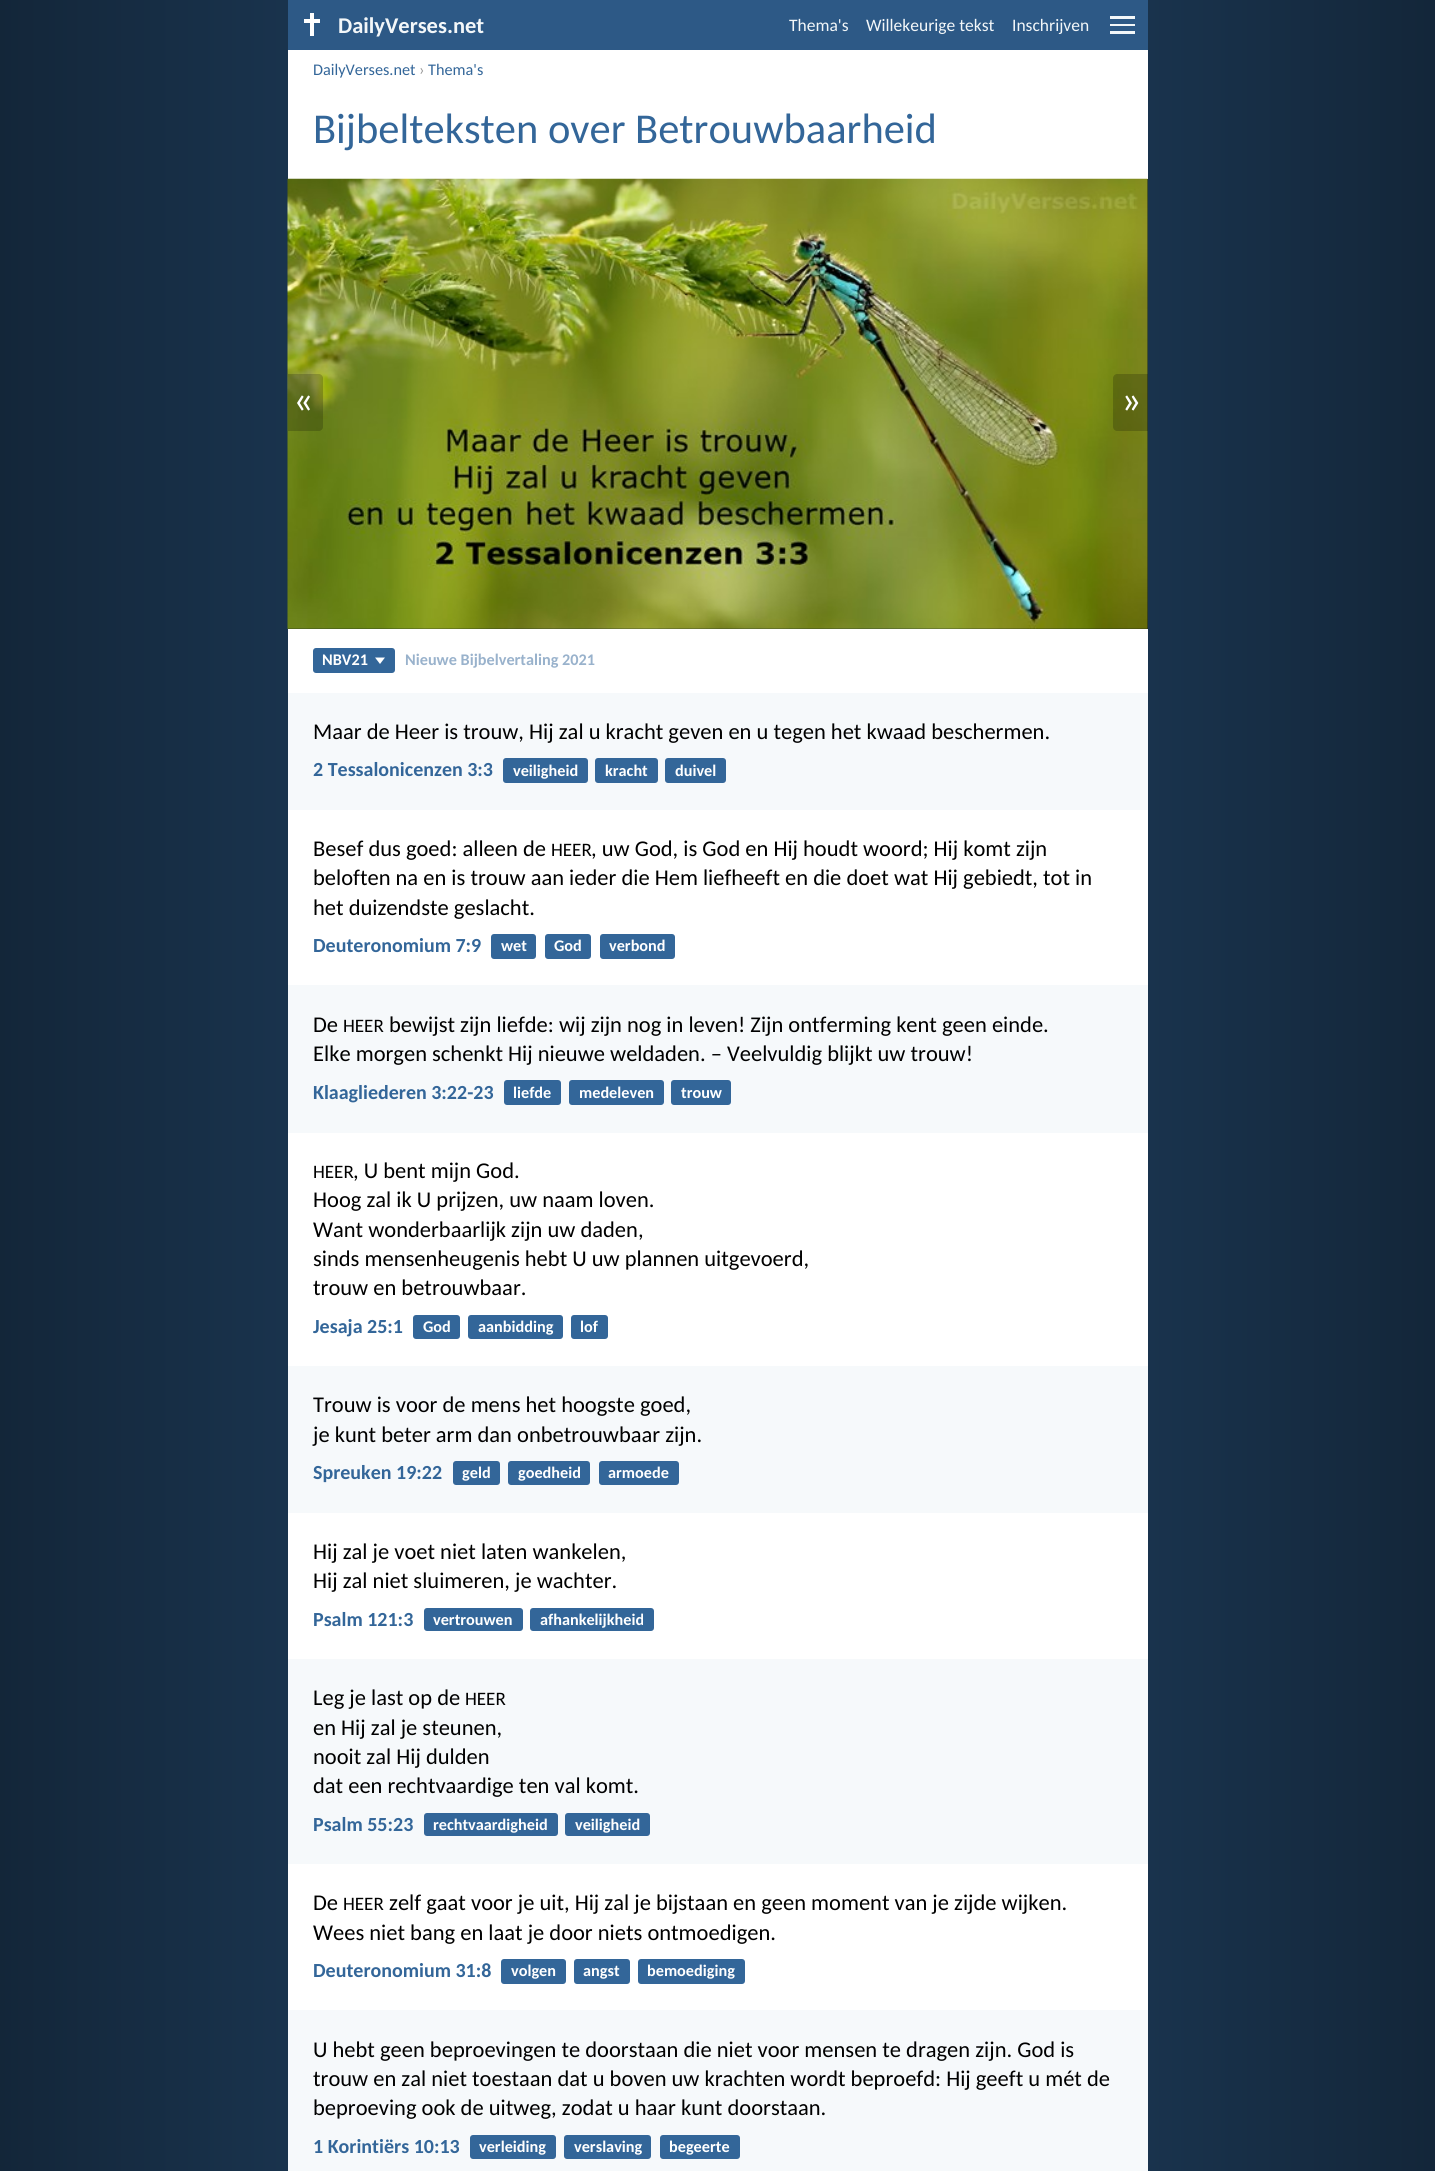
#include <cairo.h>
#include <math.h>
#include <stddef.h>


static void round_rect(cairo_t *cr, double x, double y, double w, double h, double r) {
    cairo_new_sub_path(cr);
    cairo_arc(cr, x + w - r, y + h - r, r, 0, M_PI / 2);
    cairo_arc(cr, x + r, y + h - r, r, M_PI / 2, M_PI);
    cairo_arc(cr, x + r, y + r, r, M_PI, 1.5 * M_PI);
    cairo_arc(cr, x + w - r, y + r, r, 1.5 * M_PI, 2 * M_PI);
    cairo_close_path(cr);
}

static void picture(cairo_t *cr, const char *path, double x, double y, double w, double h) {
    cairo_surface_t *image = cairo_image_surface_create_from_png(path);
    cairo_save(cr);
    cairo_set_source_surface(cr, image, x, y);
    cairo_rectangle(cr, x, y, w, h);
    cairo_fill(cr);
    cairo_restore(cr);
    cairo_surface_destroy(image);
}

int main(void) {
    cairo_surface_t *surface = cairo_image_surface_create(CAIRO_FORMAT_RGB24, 1435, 2171);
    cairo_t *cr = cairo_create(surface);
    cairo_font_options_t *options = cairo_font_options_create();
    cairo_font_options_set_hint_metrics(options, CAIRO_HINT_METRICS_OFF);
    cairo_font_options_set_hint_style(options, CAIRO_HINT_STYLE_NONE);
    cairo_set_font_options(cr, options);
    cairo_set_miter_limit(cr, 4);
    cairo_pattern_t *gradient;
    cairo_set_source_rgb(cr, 1, 1, 1);
    cairo_paint(cr);
    gradient = cairo_pattern_create_linear(0, 1086, 1435, 1086);
    cairo_pattern_add_color_stop_rgba(gradient, 0, 0.075, 0.149, 0.224, 1);
    cairo_pattern_add_color_stop_rgba(gradient, 0.2, 0.098, 0.2, 0.302, 1);
    cairo_pattern_add_color_stop_rgba(gradient, 0.8, 0.098, 0.2, 0.302, 1);
    cairo_pattern_add_color_stop_rgba(gradient, 1, 0.075, 0.149, 0.224, 1);
    cairo_set_source(cr, gradient);
    cairo_pattern_destroy(gradient);
    cairo_rectangle(cr, 0, 0, 1435, 2171);
    cairo_fill(cr);
    cairo_set_source_rgb(cr, 0.176, 0.349, 0.525);
    cairo_rectangle(cr, 288, 0, 860, 50);
    cairo_fill(cr);
    cairo_set_source_rgb(cr, 1, 1, 1);
    cairo_rectangle(cr, 310, 13, 4, 23);
    cairo_fill(cr);
    cairo_rectangle(cr, 304, 19, 16, 4);
    cairo_fill(cr);
    cairo_select_font_face(cr, "Carlito", CAIRO_FONT_SLANT_NORMAL, CAIRO_FONT_WEIGHT_BOLD);
    cairo_set_font_size(cr, 22.5);
    cairo_set_source_rgb(cr, 0.953, 0.965, 0.976);
    cairo_move_to(cr, 338, 33);
    cairo_show_text(cr, "DailyVerses.net");
    cairo_select_font_face(cr, "Carlito", CAIRO_FONT_SLANT_NORMAL, CAIRO_FONT_WEIGHT_NORMAL);
    cairo_set_font_size(cr, 17.5);
    cairo_move_to(cr, 789, 31);
    cairo_show_text(cr, "Thema's");
    cairo_move_to(cr, 866, 31);
    cairo_show_text(cr, "Willekeurige tekst");
    cairo_move_to(cr, 1012, 31);
    cairo_show_text(cr, "Inschrijven");
    cairo_rectangle(cr, 1110, 16, 25, 3);
    cairo_fill(cr);
    cairo_rectangle(cr, 1110, 24, 25, 2);
    cairo_fill(cr);
    cairo_rectangle(cr, 1110, 31, 25, 3);
    cairo_fill(cr);
    cairo_set_source_rgb(cr, 1, 1, 1);
    cairo_rectangle(cr, 288, 50, 860, 1960);
    cairo_fill(cr);
    cairo_set_font_size(cr, 16.25);
    cairo_set_source_rgb(cr, 0.2, 0.4, 0.6);
    cairo_move_to(cr, 313, 75);
    cairo_show_text(cr, "DailyVerses.net");
    cairo_set_source_rgb(cr, 0.6, 0.6, 0.6);
    cairo_move_to(cr, 419, 75);
    cairo_show_text(cr, "›");
    cairo_set_source_rgb(cr, 0.2, 0.4, 0.6);
    cairo_move_to(cr, 428, 75);
    cairo_show_text(cr, "Thema's");
    cairo_set_font_size(cr, 42.5);
    cairo_move_to(cr, 313, 143);
    cairo_show_text(cr, "Bijbelteksten over Betrouwbaarheid");
    gradient = cairo_pattern_create_radial(0, 0, 0, 0, 0, 1);
    cairo_pattern_set_matrix(gradient, &(cairo_matrix_t){1.0 / 608, 0, 0, 1.0 / 318, -1.0 * 718 / 608, -1.0 * 404 / 318});
    cairo_pattern_add_color_stop_rgba(gradient, 0, 0.098, 0.2, 0.302, 1);
    cairo_pattern_add_color_stop_rgba(gradient, 1, 0.051, 0.102, 0.149, 1);
    cairo_set_source(cr, gradient);
    cairo_pattern_destroy(gradient);
    cairo_rectangle(cr, 288, 179, 860, 450);
    cairo_fill(cr);
    picture(cr, "img1.png", 287, 178, 861, 451);
    cairo_set_source_rgba(cr, 0, 0, 0, 0.2);
    cairo_new_path(cr);
    cairo_move_to(cr, 288, 374);
    cairo_line_to(cr, 319, 374);
    cairo_curve_to(cr, 321, 374, 323, 376, 323, 378);
    cairo_line_to(cr, 323, 427);
    cairo_curve_to(cr, 323, 429, 321, 431, 319, 431);
    cairo_line_to(cr, 288, 431);
    cairo_close_path(cr);
    cairo_fill(cr);
    cairo_set_font_size(cr, 40);
    cairo_set_source_rgb(cr, 1, 1, 1);
    cairo_move_to(cr, 293, 413);
    cairo_show_text(cr, "«");
    cairo_set_source_rgba(cr, 0, 0, 0, 0.2);
    cairo_new_path(cr);
    cairo_move_to(cr, 1117, 374);
    cairo_line_to(cr, 1148, 374);
    cairo_line_to(cr, 1148, 431);
    cairo_line_to(cr, 1117, 431);
    cairo_curve_to(cr, 1115, 431, 1113, 429, 1113, 427);
    cairo_line_to(cr, 1113, 378);
    cairo_curve_to(cr, 1113, 376, 1115, 374, 1117, 374);
    cairo_close_path(cr);
    cairo_fill(cr);
    cairo_set_source_rgb(cr, 1, 1, 1);
    cairo_move_to(cr, 1121, 413);
    cairo_show_text(cr, "»");
    cairo_set_source_rgb(cr, 0.2, 0.4, 0.6);
    round_rect(cr, 313, 648, 82, 25, 3);
    cairo_fill(cr);
    cairo_select_font_face(cr, "Carlito", CAIRO_FONT_SLANT_NORMAL, CAIRO_FONT_WEIGHT_BOLD);
    cairo_set_font_size(cr, 16.25);
    cairo_set_source_rgb(cr, 1, 1, 1);
    cairo_move_to(cr, 322, 665);
    cairo_show_text(cr, "NBV21");
    cairo_new_path(cr);
    cairo_move_to(cr, 375, 657.5);
    cairo_line_to(cr, 385, 657.5);
    cairo_line_to(cr, 380, 664);
    cairo_close_path(cr);
    cairo_fill(cr);
    cairo_set_source_rgb(cr, 0.6, 0.698, 0.8);
    cairo_move_to(cr, 405, 665);
    cairo_show_text(cr, "Nieuwe Bijbelvertaling 2021");
    cairo_set_source_rgb(cr, 0.961, 0.973, 0.984);
    cairo_rectangle(cr, 288, 693, 860, 117);
    cairo_fill(cr);
    cairo_select_font_face(cr, "Carlito", CAIRO_FONT_SLANT_NORMAL, CAIRO_FONT_WEIGHT_NORMAL);
    cairo_set_font_size(cr, 22.5);
    cairo_set_source_rgb(cr, 0, 0, 0);
    cairo_move_to(cr, 313, 739);
    cairo_show_text(cr, "Maar de Heer is trouw, Hij zal u kracht geven en u tegen het kwaad beschermen.");
    cairo_select_font_face(cr, "Carlito", CAIRO_FONT_SLANT_NORMAL, CAIRO_FONT_WEIGHT_BOLD);
    cairo_set_font_size(cr, 20);
    cairo_set_source_rgb(cr, 0.2, 0.4, 0.6);
    cairo_move_to(cr, 313, 776);
    cairo_show_text(cr, "2 Tessalonicenzen 3:3");
    round_rect(cr, 503, 758, 85, 25, 3);
    cairo_fill(cr);
    cairo_set_font_size(cr, 16.25);
    cairo_set_source_rgb(cr, 1, 1, 1);
    cairo_move_to(cr, 513, 776);
    cairo_show_text(cr, "veiligheid");
    cairo_set_source_rgb(cr, 0.2, 0.4, 0.6);
    round_rect(cr, 595, 758, 63, 25, 3);
    cairo_fill(cr);
    cairo_set_source_rgb(cr, 1, 1, 1);
    cairo_move_to(cr, 605, 776);
    cairo_show_text(cr, "kracht");
    cairo_set_source_rgb(cr, 0.2, 0.4, 0.6);
    round_rect(cr, 665, 758, 61, 25, 3);
    cairo_fill(cr);
    cairo_set_source_rgb(cr, 1, 1, 1);
    cairo_move_to(cr, 675, 776);
    cairo_show_text(cr, "duivel");
    cairo_select_font_face(cr, "Carlito", CAIRO_FONT_SLANT_NORMAL, CAIRO_FONT_WEIGHT_NORMAL);
    cairo_set_font_size(cr, 22.5);
    cairo_set_source_rgb(cr, 0, 0, 0);
    cairo_move_to(cr, 313, 856);
    cairo_show_text(cr, "Besef dus goed: alleen de");
    cairo_set_font_size(cr, 19);
    cairo_move_to(cr, 551, 856);
    cairo_show_text(cr, "HEER");
    cairo_set_font_size(cr, 22.5);
    cairo_move_to(cr, 591, 856);
    cairo_show_text(cr, ", uw God, is God en Hij houdt woord; Hij komt zijn");
    cairo_move_to(cr, 313, 885);
    cairo_show_text(cr, "beloften na en is trouw aan ieder die Hem liefheeft en die doet wat Hij gebiedt, tot in");
    cairo_move_to(cr, 313, 915);
    cairo_show_text(cr, "het duizendste geslacht.");
    cairo_select_font_face(cr, "Carlito", CAIRO_FONT_SLANT_NORMAL, CAIRO_FONT_WEIGHT_BOLD);
    cairo_set_font_size(cr, 20);
    cairo_set_source_rgb(cr, 0.2, 0.4, 0.6);
    cairo_move_to(cr, 313, 952);
    cairo_show_text(cr, "Deuteronomium 7:9");
    round_rect(cr, 491, 934, 45, 25, 3);
    cairo_fill(cr);
    cairo_set_font_size(cr, 16.25);
    cairo_set_source_rgb(cr, 1, 1, 1);
    cairo_move_to(cr, 501, 951);
    cairo_show_text(cr, "wet");
    cairo_set_source_rgb(cr, 0.2, 0.4, 0.6);
    round_rect(cr, 545, 934, 46, 25, 3);
    cairo_fill(cr);
    cairo_set_source_rgb(cr, 1, 1, 1);
    cairo_move_to(cr, 554, 951);
    cairo_show_text(cr, "God");
    cairo_set_source_rgb(cr, 0.2, 0.4, 0.6);
    round_rect(cr, 600, 934, 75, 25, 3);
    cairo_fill(cr);
    cairo_set_source_rgb(cr, 1, 1, 1);
    cairo_move_to(cr, 609, 951);
    cairo_show_text(cr, "verbond");
    cairo_set_source_rgb(cr, 0.961, 0.973, 0.984);
    cairo_rectangle(cr, 288, 985, 860, 148);
    cairo_fill(cr);
    cairo_select_font_face(cr, "Carlito", CAIRO_FONT_SLANT_NORMAL, CAIRO_FONT_WEIGHT_NORMAL);
    cairo_set_font_size(cr, 22.5);
    cairo_set_source_rgb(cr, 0, 0, 0);
    cairo_move_to(cr, 313, 1032);
    cairo_show_text(cr, "De");
    cairo_set_font_size(cr, 19);
    cairo_move_to(cr, 343, 1032);
    cairo_show_text(cr, "HEER");
    cairo_set_font_size(cr, 22.5);
    cairo_move_to(cr, 389, 1032);
    cairo_show_text(cr, "bewijst zijn liefde: wij zijn nog in leven! Zijn ontferming kent geen einde.");
    cairo_move_to(cr, 313, 1061);
    cairo_show_text(cr, "Elke morgen schenkt Hij nieuwe weldaden. – Veelvuldig blijkt uw trouw!");
    cairo_select_font_face(cr, "Carlito", CAIRO_FONT_SLANT_NORMAL, CAIRO_FONT_WEIGHT_BOLD);
    cairo_set_font_size(cr, 20);
    cairo_set_source_rgb(cr, 0.2, 0.4, 0.6);
    cairo_move_to(cr, 313, 1099);
    cairo_show_text(cr, "Klaagliederen 3:22-23");
    round_rect(cr, 504, 1080, 57, 25, 3);
    cairo_fill(cr);
    cairo_set_font_size(cr, 16.25);
    cairo_set_source_rgb(cr, 1, 1, 1);
    cairo_move_to(cr, 513, 1098);
    cairo_show_text(cr, "liefde");
    cairo_set_source_rgb(cr, 0.2, 0.4, 0.6);
    round_rect(cr, 569, 1080, 95, 25, 3);
    cairo_fill(cr);
    cairo_set_source_rgb(cr, 1, 1, 1);
    cairo_move_to(cr, 579, 1098);
    cairo_show_text(cr, "medeleven");
    cairo_set_source_rgb(cr, 0.2, 0.4, 0.6);
    round_rect(cr, 671, 1080, 60, 25, 3);
    cairo_fill(cr);
    cairo_set_source_rgb(cr, 1, 1, 1);
    cairo_move_to(cr, 681, 1098);
    cairo_show_text(cr, "trouw");
    cairo_select_font_face(cr, "Carlito", CAIRO_FONT_SLANT_NORMAL, CAIRO_FONT_WEIGHT_NORMAL);
    cairo_set_font_size(cr, 19);
    cairo_set_source_rgb(cr, 0, 0, 0);
    cairo_move_to(cr, 313, 1178);
    cairo_show_text(cr, "HEER");
    cairo_set_font_size(cr, 22.5);
    cairo_move_to(cr, 353, 1178);
    cairo_show_text(cr, ", U bent mijn God.");
    cairo_move_to(cr, 313, 1207);
    cairo_show_text(cr, "Hoog zal ik U prijzen, uw naam loven.");
    cairo_move_to(cr, 313, 1237);
    cairo_show_text(cr, "Want wonderbaarlijk zijn uw daden,");
    cairo_move_to(cr, 313, 1266);
    cairo_show_text(cr, "sinds mensenheugenis hebt U uw plannen uitgevoerd,");
    cairo_move_to(cr, 313, 1295);
    cairo_show_text(cr, "trouw en betrouwbaar.");
    cairo_select_font_face(cr, "Carlito", CAIRO_FONT_SLANT_NORMAL, CAIRO_FONT_WEIGHT_BOLD);
    cairo_set_font_size(cr, 20);
    cairo_set_source_rgb(cr, 0.2, 0.4, 0.6);
    cairo_move_to(cr, 313, 1333);
    cairo_show_text(cr, "Jesaja 25:1");
    round_rect(cr, 413, 1315, 47, 24, 3);
    cairo_fill(cr);
    cairo_set_font_size(cr, 16.25);
    cairo_set_source_rgb(cr, 1, 1, 1);
    cairo_move_to(cr, 423, 1332);
    cairo_show_text(cr, "God");
    cairo_set_source_rgb(cr, 0.2, 0.4, 0.6);
    round_rect(cr, 468, 1315, 95, 24, 3);
    cairo_fill(cr);
    cairo_set_source_rgb(cr, 1, 1, 1);
    cairo_move_to(cr, 478, 1332);
    cairo_show_text(cr, "aanbidding");
    cairo_set_source_rgb(cr, 0.2, 0.4, 0.6);
    round_rect(cr, 571, 1315, 37, 24, 3);
    cairo_fill(cr);
    cairo_set_source_rgb(cr, 1, 1, 1);
    cairo_move_to(cr, 580, 1332);
    cairo_show_text(cr, "lof");
    cairo_set_source_rgb(cr, 0.961, 0.973, 0.984);
    cairo_rectangle(cr, 288, 1366, 860, 147);
    cairo_fill(cr);
    cairo_select_font_face(cr, "Carlito", CAIRO_FONT_SLANT_NORMAL, CAIRO_FONT_WEIGHT_NORMAL);
    cairo_set_font_size(cr, 22.5);
    cairo_set_source_rgb(cr, 0, 0, 0);
    cairo_move_to(cr, 313, 1412);
    cairo_show_text(cr, "Trouw is voor de mens het hoogste goed,");
    cairo_move_to(cr, 313, 1442);
    cairo_show_text(cr, "je kunt beter arm dan onbetrouwbaar zijn.");
    cairo_select_font_face(cr, "Carlito", CAIRO_FONT_SLANT_NORMAL, CAIRO_FONT_WEIGHT_BOLD);
    cairo_set_font_size(cr, 20);
    cairo_set_source_rgb(cr, 0.2, 0.4, 0.6);
    cairo_move_to(cr, 313, 1479);
    cairo_show_text(cr, "Spreuken 19:22");
    round_rect(cr, 453, 1461, 47, 24, 3);
    cairo_fill(cr);
    cairo_set_font_size(cr, 16.25);
    cairo_set_source_rgb(cr, 1, 1, 1);
    cairo_move_to(cr, 462, 1478);
    cairo_show_text(cr, "geld");
    cairo_set_source_rgb(cr, 0.2, 0.4, 0.6);
    round_rect(cr, 508, 1461, 82, 24, 3);
    cairo_fill(cr);
    cairo_set_source_rgb(cr, 1, 1, 1);
    cairo_move_to(cr, 518, 1478);
    cairo_show_text(cr, "goedheid");
    cairo_set_source_rgb(cr, 0.2, 0.4, 0.6);
    round_rect(cr, 599, 1461, 80, 24, 3);
    cairo_fill(cr);
    cairo_set_source_rgb(cr, 1, 1, 1);
    cairo_move_to(cr, 608, 1478);
    cairo_show_text(cr, "armoede");
    cairo_select_font_face(cr, "Carlito", CAIRO_FONT_SLANT_NORMAL, CAIRO_FONT_WEIGHT_NORMAL);
    cairo_set_font_size(cr, 22.5);
    cairo_set_source_rgb(cr, 0, 0, 0);
    cairo_move_to(cr, 313, 1559);
    cairo_show_text(cr, "Hij zal je voet niet laten wankelen,");
    cairo_move_to(cr, 313, 1588);
    cairo_show_text(cr, "Hij zal niet sluimeren, je wachter.");
    cairo_select_font_face(cr, "Carlito", CAIRO_FONT_SLANT_NORMAL, CAIRO_FONT_WEIGHT_BOLD);
    cairo_set_font_size(cr, 20);
    cairo_set_source_rgb(cr, 0.2, 0.4, 0.6);
    cairo_move_to(cr, 313, 1626);
    cairo_show_text(cr, "Psalm 121:3");
    round_rect(cr, 424, 1608, 99, 23, 3);
    cairo_fill(cr);
    cairo_set_font_size(cr, 16.25);
    cairo_set_source_rgb(cr, 1, 1, 1);
    cairo_move_to(cr, 433, 1625);
    cairo_show_text(cr, "vertrouwen");
    cairo_set_source_rgb(cr, 0.2, 0.4, 0.6);
    round_rect(cr, 530, 1608, 124, 23, 3);
    cairo_fill(cr);
    cairo_set_source_rgb(cr, 1, 1, 1);
    cairo_move_to(cr, 540, 1625);
    cairo_show_text(cr, "afhankelijkheid");
    cairo_set_source_rgb(cr, 0.961, 0.973, 0.984);
    cairo_rectangle(cr, 288, 1659, 860, 205);
    cairo_fill(cr);
    cairo_select_font_face(cr, "Carlito", CAIRO_FONT_SLANT_NORMAL, CAIRO_FONT_WEIGHT_NORMAL);
    cairo_set_font_size(cr, 22.5);
    cairo_set_source_rgb(cr, 0, 0, 0);
    cairo_move_to(cr, 313, 1705);
    cairo_show_text(cr, "Leg je last op de");
    cairo_set_font_size(cr, 19);
    cairo_move_to(cr, 465, 1705);
    cairo_show_text(cr, "HEER");
    cairo_set_font_size(cr, 22.5);
    cairo_move_to(cr, 313, 1735);
    cairo_show_text(cr, "en Hij zal je steunen,");
    cairo_move_to(cr, 313, 1764);
    cairo_show_text(cr, "nooit zal Hij dulden");
    cairo_move_to(cr, 313, 1793);
    cairo_show_text(cr, "dat een rechtvaardige ten val komt.");
    cairo_select_font_face(cr, "Carlito", CAIRO_FONT_SLANT_NORMAL, CAIRO_FONT_WEIGHT_BOLD);
    cairo_set_font_size(cr, 20);
    cairo_set_source_rgb(cr, 0.2, 0.4, 0.6);
    cairo_move_to(cr, 313, 1831);
    cairo_show_text(cr, "Psalm 55:23");
    round_rect(cr, 424, 1813, 134, 23, 3);
    cairo_fill(cr);
    cairo_set_font_size(cr, 16.25);
    cairo_set_source_rgb(cr, 1, 1, 1);
    cairo_move_to(cr, 433, 1830);
    cairo_show_text(cr, "rechtvaardigheid");
    cairo_set_source_rgb(cr, 0.2, 0.4, 0.6);
    round_rect(cr, 565, 1813, 85, 23, 3);
    cairo_fill(cr);
    cairo_set_source_rgb(cr, 1, 1, 1);
    cairo_move_to(cr, 575, 1830);
    cairo_show_text(cr, "veiligheid");
    cairo_select_font_face(cr, "Carlito", CAIRO_FONT_SLANT_NORMAL, CAIRO_FONT_WEIGHT_NORMAL);
    cairo_set_font_size(cr, 22.5);
    cairo_set_source_rgb(cr, 0, 0, 0);
    cairo_move_to(cr, 313, 1910);
    cairo_show_text(cr, "De");
    cairo_set_font_size(cr, 19);
    cairo_move_to(cr, 343, 1910);
    cairo_show_text(cr, "HEER");
    cairo_set_font_size(cr, 22.5);
    cairo_move_to(cr, 389, 1910);
    cairo_show_text(cr, "zelf gaat voor je uit, Hij zal je bijstaan en geen moment van je zijde wijken.");
    cairo_move_to(cr, 313, 1940);
    cairo_show_text(cr, "Wees niet bang en laat je door niets ontmoedigen.");
    cairo_select_font_face(cr, "Carlito", CAIRO_FONT_SLANT_NORMAL, CAIRO_FONT_WEIGHT_BOLD);
    cairo_set_font_size(cr, 20);
    cairo_set_source_rgb(cr, 0.2, 0.4, 0.6);
    cairo_move_to(cr, 313, 1977);
    cairo_show_text(cr, "Deuteronomium 31:8");
    round_rect(cr, 501, 1959, 65, 25, 3);
    cairo_fill(cr);
    cairo_set_font_size(cr, 16.25);
    cairo_set_source_rgb(cr, 1, 1, 1);
    cairo_move_to(cr, 511, 1976);
    cairo_show_text(cr, "volgen");
    cairo_set_source_rgb(cr, 0.2, 0.4, 0.6);
    round_rect(cr, 574, 1959, 56, 25, 3);
    cairo_fill(cr);
    cairo_set_source_rgb(cr, 1, 1, 1);
    cairo_move_to(cr, 583, 1976);
    cairo_show_text(cr, "angst");
    cairo_set_source_rgb(cr, 0.2, 0.4, 0.6);
    round_rect(cr, 638, 1959, 107, 25, 3);
    cairo_fill(cr);
    cairo_set_source_rgb(cr, 1, 1, 1);
    cairo_move_to(cr, 647, 1976);
    cairo_show_text(cr, "bemoediging");
    cairo_set_source_rgb(cr, 0.961, 0.973, 0.984);
    cairo_rectangle(cr, 288, 2010, 860, 161);
    cairo_fill(cr);
    cairo_select_font_face(cr, "Carlito", CAIRO_FONT_SLANT_NORMAL, CAIRO_FONT_WEIGHT_NORMAL);
    cairo_set_font_size(cr, 22.5);
    cairo_set_source_rgb(cr, 0, 0, 0);
    cairo_move_to(cr, 313, 2057);
    cairo_show_text(cr, "U hebt geen beproevingen te doorstaan die niet voor mensen te dragen zijn. God is");
    cairo_move_to(cr, 313, 2086);
    cairo_show_text(cr, "trouw en zal niet toestaan dat u boven uw krachten wordt beproefd: Hij geeft u mét de");
    cairo_move_to(cr, 313, 2115);
    cairo_show_text(cr, "beproeving ook de uitweg, zodat u haar kunt doorstaan.");
    cairo_select_font_face(cr, "Carlito", CAIRO_FONT_SLANT_NORMAL, CAIRO_FONT_WEIGHT_BOLD);
    cairo_set_font_size(cr, 20);
    cairo_set_source_rgb(cr, 0.2, 0.4, 0.6);
    cairo_move_to(cr, 313, 2153);
    cairo_show_text(cr, "1 Korintiërs 10:13");
    round_rect(cr, 470, 2135, 86, 24, 3);
    cairo_fill(cr);
    cairo_set_font_size(cr, 16.25);
    cairo_set_source_rgb(cr, 1, 1, 1);
    cairo_move_to(cr, 479, 2152);
    cairo_show_text(cr, "verleiding");
    cairo_set_source_rgb(cr, 0.2, 0.4, 0.6);
    round_rect(cr, 564, 2135, 87, 24, 3);
    cairo_fill(cr);
    cairo_set_source_rgb(cr, 1, 1, 1);
    cairo_move_to(cr, 574, 2152);
    cairo_show_text(cr, "verslaving");
    cairo_set_source_rgb(cr, 0.2, 0.4, 0.6);
    round_rect(cr, 660, 2135, 80, 24, 3);
    cairo_fill(cr);
    cairo_set_source_rgb(cr, 1, 1, 1);
    cairo_move_to(cr, 669, 2152);
    cairo_show_text(cr, "begeerte");
    cairo_surface_write_to_png(surface, "page.png");
    cairo_font_options_destroy(options);
    cairo_destroy(cr);
    cairo_surface_destroy(surface);
    return 0;
}
